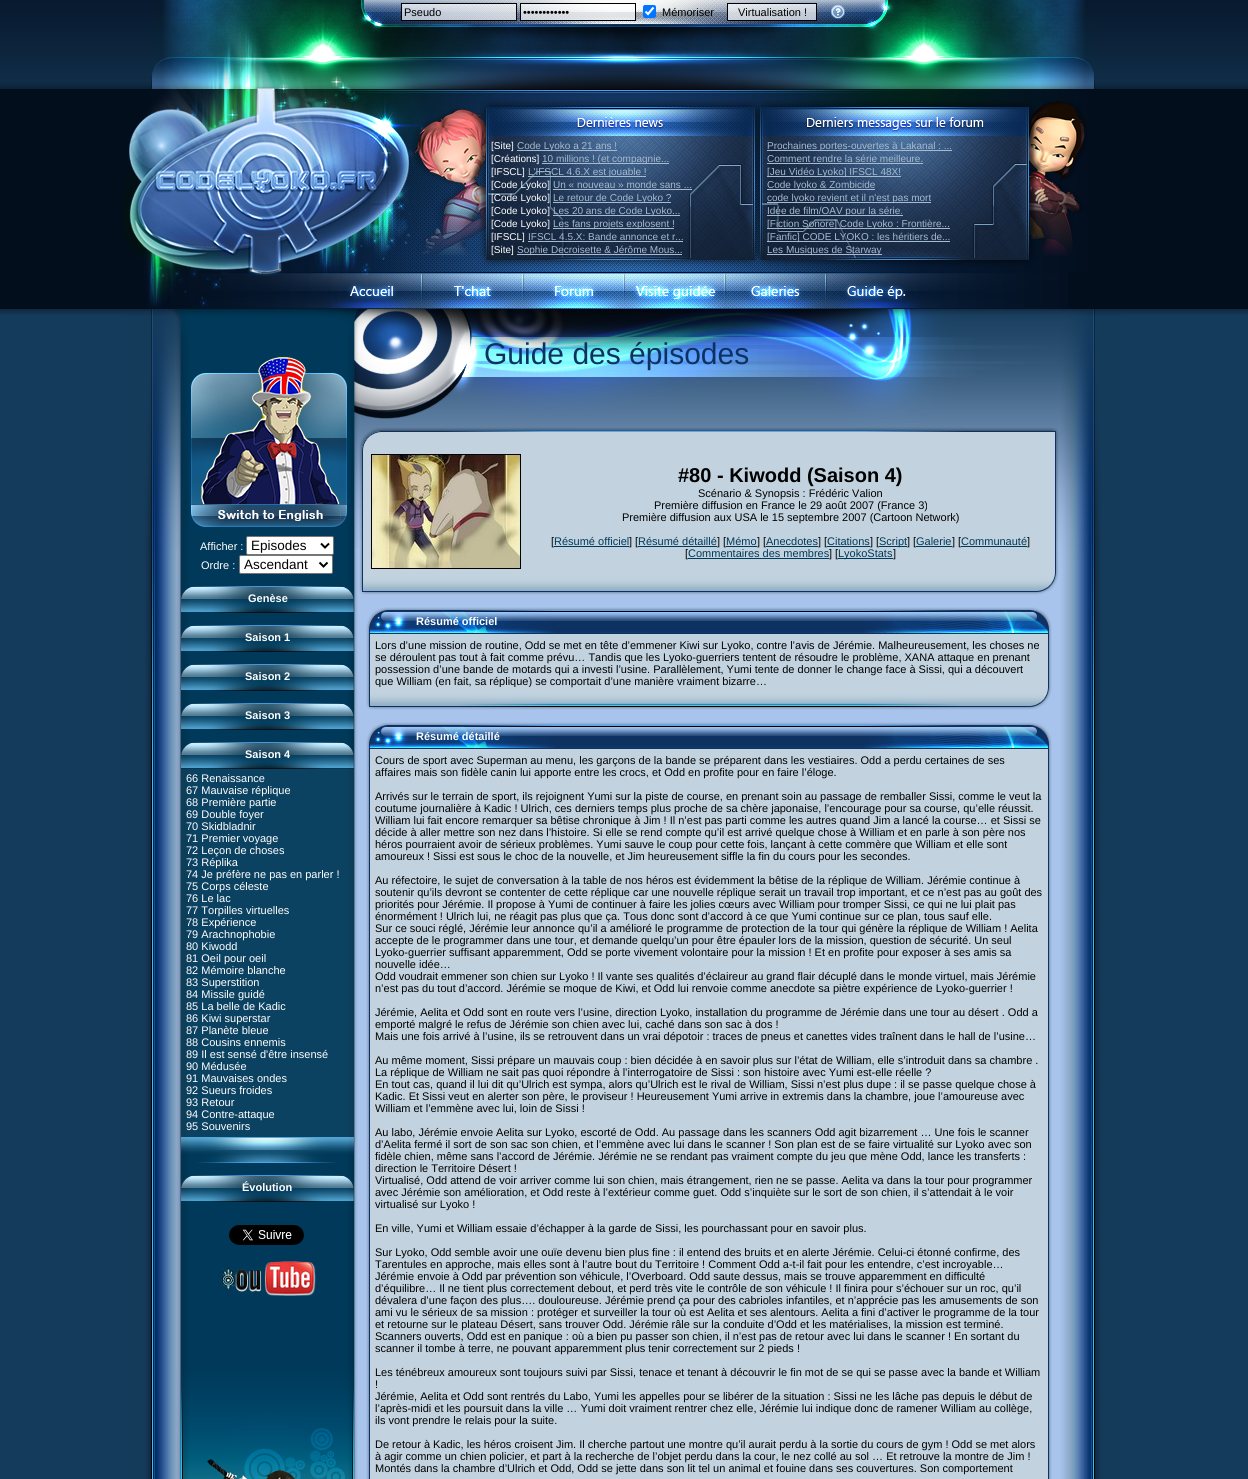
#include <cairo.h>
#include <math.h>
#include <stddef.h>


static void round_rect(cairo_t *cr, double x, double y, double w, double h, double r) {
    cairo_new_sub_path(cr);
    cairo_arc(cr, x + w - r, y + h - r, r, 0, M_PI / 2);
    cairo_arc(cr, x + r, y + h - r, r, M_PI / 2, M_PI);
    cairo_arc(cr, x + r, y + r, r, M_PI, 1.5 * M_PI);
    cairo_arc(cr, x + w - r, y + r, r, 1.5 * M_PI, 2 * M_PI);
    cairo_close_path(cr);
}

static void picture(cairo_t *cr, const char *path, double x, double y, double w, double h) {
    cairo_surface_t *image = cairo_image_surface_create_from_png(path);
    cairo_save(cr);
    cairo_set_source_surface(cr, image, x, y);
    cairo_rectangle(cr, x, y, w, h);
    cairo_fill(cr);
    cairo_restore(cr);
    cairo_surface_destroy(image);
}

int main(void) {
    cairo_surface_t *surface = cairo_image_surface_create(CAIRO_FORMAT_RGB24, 1248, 1479);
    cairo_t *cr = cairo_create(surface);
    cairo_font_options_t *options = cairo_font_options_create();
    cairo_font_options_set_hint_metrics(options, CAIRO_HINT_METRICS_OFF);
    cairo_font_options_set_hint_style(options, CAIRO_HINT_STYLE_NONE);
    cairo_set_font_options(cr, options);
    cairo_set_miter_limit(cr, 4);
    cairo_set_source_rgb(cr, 0.082, 0.231, 0.357);
    cairo_paint(cr);
    picture(cr, "img1.png", 0, 0, 1248, 315);
    picture(cr, "img2.png", 151, 0, 944, 89);
    cairo_set_source_rgba(cr, 1, 1, 1, 0.7);
    cairo_rectangle(cr, 401.5, 3.5, 115, 17);
    cairo_fill_preserve(cr);
    cairo_set_source_rgb(cr, 0, 0, 0);
    cairo_set_line_width(cr, 1);
    cairo_stroke(cr);
    cairo_select_font_face(cr, "Liberation Sans", CAIRO_FONT_SLANT_NORMAL, CAIRO_FONT_WEIGHT_NORMAL);
    cairo_set_font_size(cr, 11);
    cairo_move_to(cr, 404, 16);
    cairo_show_text(cr, "Pseudo");
    cairo_set_source_rgba(cr, 1, 1, 1, 0.7);
    cairo_rectangle(cr, 520.5, 3.5, 115, 17);
    cairo_fill_preserve(cr);
    cairo_set_source_rgb(cr, 0, 0, 0);
    cairo_stroke(cr);
    cairo_move_to(cr, 523, 16);
    cairo_show_text(cr, "••••••••••••");
    cairo_set_source_rgb(cr, 0, 0.459, 1);
    round_rect(cr, 643, 5, 13, 13, 2);
    cairo_fill(cr);
    cairo_new_path(cr);
    cairo_move_to(cr, 645.5, 11.5);
    cairo_line_to(cr, 648, 14);
    cairo_line_to(cr, 653.5, 7.5);
    cairo_set_source_rgb(cr, 1, 1, 1);
    cairo_set_line_width(cr, 2.1);
    cairo_stroke(cr);
    cairo_set_source_rgb(cr, 0, 0, 0);
    cairo_move_to(cr, 662, 16);
    cairo_show_text(cr, "Mémoriser");
    cairo_set_source_rgba(cr, 1, 1, 1, 0.7);
    cairo_rectangle(cr, 727.5, 3.5, 89, 17);
    cairo_fill_preserve(cr);
    cairo_set_source_rgb(cr, 0, 0, 0);
    cairo_set_line_width(cr, 1);
    cairo_stroke(cr);
    cairo_move_to(cr, 738, 16);
    cairo_show_text(cr, "Virtualisation !");
    picture(cr, "img3.png", 831, 5, 14, 14);
    picture(cr, "img4.png", 124, 89, 290, 183);
    picture(cr, "img5.png", 414, 89, 72, 183);
    picture(cr, "img6.png", 486, 89, 543, 183);
    cairo_set_font_size(cr, 10);
    cairo_set_source_rgb(cr, 1, 1, 1);
    cairo_move_to(cr, 491, 149);
    cairo_show_text(cr, "[Site]");
    cairo_set_source_rgb(cr, 0.651, 0.729, 0.816);
    cairo_rectangle(cr, 517, 150, 100, 1);
    cairo_fill(cr);
    cairo_move_to(cr, 517, 149);
    cairo_show_text(cr, "Code Lyoko a 21 ans !");
    cairo_set_source_rgb(cr, 1, 1, 1);
    cairo_move_to(cr, 491, 162);
    cairo_show_text(cr, "[Créations]");
    cairo_set_source_rgb(cr, 0.651, 0.729, 0.816);
    cairo_rectangle(cr, 542, 163, 127, 1);
    cairo_fill(cr);
    cairo_move_to(cr, 542, 162);
    cairo_show_text(cr, "10 millions ! (et compagnie...");
    cairo_set_source_rgb(cr, 1, 1, 1);
    cairo_move_to(cr, 491, 175);
    cairo_show_text(cr, "[IFSCL]");
    cairo_set_source_rgb(cr, 0.651, 0.729, 0.816);
    cairo_rectangle(cr, 528, 176, 118, 1);
    cairo_fill(cr);
    cairo_move_to(cr, 528, 175);
    cairo_show_text(cr, "L'IFSCL 4.6.X est jouable !");
    cairo_set_source_rgb(cr, 1, 1, 1);
    cairo_move_to(cr, 491, 188);
    cairo_show_text(cr, "[Code Lyoko]");
    cairo_set_source_rgb(cr, 0.651, 0.729, 0.816);
    cairo_move_to(cr, 553, 188);
    cairo_show_text(cr, "Un « nouveau » monde sans ...");
    cairo_rectangle(cr, 553, 189, 139, 1);
    cairo_fill(cr);
    cairo_set_source_rgb(cr, 1, 1, 1);
    cairo_move_to(cr, 491, 201);
    cairo_show_text(cr, "[Code Lyoko]");
    cairo_set_source_rgb(cr, 0.651, 0.729, 0.816);
    cairo_rectangle(cr, 553, 202, 118, 1);
    cairo_fill(cr);
    cairo_move_to(cr, 553, 201);
    cairo_show_text(cr, "Le retour de Code Lyoko ?");
    cairo_set_source_rgb(cr, 1, 1, 1);
    cairo_move_to(cr, 491, 214);
    cairo_show_text(cr, "[Code Lyoko]");
    cairo_set_source_rgb(cr, 0.651, 0.729, 0.816);
    cairo_rectangle(cr, 553, 215, 127, 1);
    cairo_fill(cr);
    cairo_move_to(cr, 553, 214);
    cairo_show_text(cr, "Les 20 ans de Code Lyoko...");
    cairo_set_source_rgb(cr, 1, 1, 1);
    cairo_move_to(cr, 491, 227);
    cairo_show_text(cr, "[Code Lyoko]");
    cairo_set_source_rgb(cr, 0.651, 0.729, 0.816);
    cairo_rectangle(cr, 553, 228, 121, 1);
    cairo_fill(cr);
    cairo_move_to(cr, 553, 227);
    cairo_show_text(cr, "Les fans projets explosent !");
    cairo_set_source_rgb(cr, 1, 1, 1);
    cairo_move_to(cr, 491, 240);
    cairo_show_text(cr, "[IFSCL]");
    cairo_set_source_rgb(cr, 0.651, 0.729, 0.816);
    cairo_move_to(cr, 528, 240);
    cairo_show_text(cr, "IFSCL 4.5.X: Bande annonce et r...");
    cairo_rectangle(cr, 528, 241, 155, 1);
    cairo_fill(cr);
    cairo_set_source_rgb(cr, 1, 1, 1);
    cairo_move_to(cr, 491, 253);
    cairo_show_text(cr, "[Site]");
    cairo_set_source_rgb(cr, 0.651, 0.729, 0.816);
    cairo_rectangle(cr, 517, 254, 165, 1);
    cairo_fill(cr);
    cairo_move_to(cr, 517, 253);
    cairo_show_text(cr, "Sophie Decroisette & Jérôme Mous...");
    cairo_rectangle(cr, 767, 150, 185, 1);
    cairo_fill(cr);
    cairo_move_to(cr, 767, 149);
    cairo_show_text(cr, "Prochaines portes-ouvertes à Lakanal : ...");
    cairo_move_to(cr, 767, 162);
    cairo_show_text(cr, "Comment rendre la série meilleure.");
    cairo_rectangle(cr, 767, 163, 156, 1);
    cairo_fill(cr);
    cairo_rectangle(cr, 767, 176, 134, 1);
    cairo_fill(cr);
    cairo_move_to(cr, 767, 175);
    cairo_show_text(cr, "[Jeu Vidéo Lyoko] IFSCL 48X!");
    cairo_rectangle(cr, 767, 189, 108, 1);
    cairo_fill(cr);
    cairo_move_to(cr, 767, 188);
    cairo_show_text(cr, "Code lyoko & Zombicide");
    cairo_rectangle(cr, 767, 202, 164, 1);
    cairo_fill(cr);
    cairo_move_to(cr, 767, 201);
    cairo_show_text(cr, "code lyoko revient et il n'est pas mort");
    cairo_rectangle(cr, 767, 215, 136, 1);
    cairo_fill(cr);
    cairo_move_to(cr, 767, 214);
    cairo_show_text(cr, "Idée de film/OAV pour la série.");
    cairo_rectangle(cr, 767, 228, 183, 1);
    cairo_fill(cr);
    cairo_move_to(cr, 767, 227);
    cairo_show_text(cr, "[Fiction Sonore] Code Lyoko : Frontière...");
    cairo_rectangle(cr, 767, 241, 183, 1);
    cairo_fill(cr);
    cairo_move_to(cr, 767, 240);
    cairo_show_text(cr, "[Fanfic] CODE LYOKO : les héritiers de...");
    cairo_rectangle(cr, 767, 254, 115, 1);
    cairo_fill(cr);
    cairo_move_to(cr, 767, 253);
    cairo_show_text(cr, "Les Musiques de Starway");
    picture(cr, "img7.png", 1029, 89, 58, 183);
    picture(cr, "img8.png", 144, 272, 177, 37);
    picture(cr, "img9.png", 321, 272, 101, 37);
    picture(cr, "img10.png", 422, 272, 101, 37);
    picture(cr, "img11.png", 523, 272, 101, 37);
    picture(cr, "img12.png", 624, 272, 101, 37);
    picture(cr, "img13.png", 725, 272, 101, 37);
    picture(cr, "img14.png", 826, 272, 101, 37);
    picture(cr, "img15.png", 927, 272, 141, 37);
    picture(cr, "img16.png", 124, 768, 51, 711);
    picture(cr, "img17.png", 124, 309, 51, 459);
    picture(cr, "img18.png", 175, 548, 184, 931);
    picture(cr, "img19.png", 177, 548, 181, 801);
    picture(cr, "img20.png", 175, 309, 184, 239);
    picture(cr, "img21.png", 191, 357, 156, 170);
    cairo_set_font_size(cr, 11);
    cairo_set_source_rgb(cr, 1, 1, 1);
    cairo_move_to(cr, 200, 550);
    cairo_show_text(cr, "Afficher :");
    round_rect(cr, 246.5, 536.5, 87, 18, 1.5);
    cairo_fill_preserve(cr);
    cairo_set_source_rgb(cr, 0.463, 0.463, 0.463);
    cairo_stroke(cr);
    cairo_new_path(cr);
    cairo_move_to(cr, 321, 543.5);
    cairo_line_to(cr, 325, 547.5);
    cairo_line_to(cr, 329, 543.5);
    cairo_set_source_rgb(cr, 0, 0, 0);
    cairo_set_line_width(cr, 2);
    cairo_stroke(cr);
    cairo_set_font_size(cr, 13.5);
    cairo_move_to(cr, 251, 550);
    cairo_show_text(cr, "Episodes");
    cairo_set_font_size(cr, 11);
    cairo_set_source_rgb(cr, 1, 1, 1);
    cairo_move_to(cr, 201, 569);
    cairo_show_text(cr, "Ordre :");
    round_rect(cr, 239.5, 555.5, 93, 18, 1.5);
    cairo_fill_preserve(cr);
    cairo_set_source_rgb(cr, 0.463, 0.463, 0.463);
    cairo_set_line_width(cr, 1);
    cairo_stroke(cr);
    cairo_new_path(cr);
    cairo_move_to(cr, 319.5, 562.5);
    cairo_line_to(cr, 323.5, 566.5);
    cairo_line_to(cr, 327.5, 562.5);
    cairo_set_source_rgb(cr, 0, 0, 0);
    cairo_set_line_width(cr, 2);
    cairo_stroke(cr);
    cairo_set_font_size(cr, 13.5);
    cairo_move_to(cr, 244, 569);
    cairo_show_text(cr, "Ascendant");
    picture(cr, "img22.png", 181, 586, 173, 27);
    cairo_select_font_face(cr, "Liberation Sans", CAIRO_FONT_SLANT_NORMAL, CAIRO_FONT_WEIGHT_BOLD);
    cairo_set_font_size(cr, 11);
    cairo_set_source_rgb(cr, 1, 1, 1);
    cairo_move_to(cr, 248, 602);
    cairo_show_text(cr, "Genèse");
    picture(cr, "img22.png", 181, 625, 173, 27);
    cairo_move_to(cr, 245, 641);
    cairo_show_text(cr, "Saison 1");
    picture(cr, "img22.png", 181, 664, 173, 27);
    cairo_move_to(cr, 245, 680);
    cairo_show_text(cr, "Saison 2");
    picture(cr, "img22.png", 181, 703, 173, 27);
    cairo_move_to(cr, 245, 719);
    cairo_show_text(cr, "Saison 3");
    picture(cr, "img22.png", 181, 742, 173, 27);
    cairo_move_to(cr, 245, 758);
    cairo_show_text(cr, "Saison 4");
    cairo_set_source_rgba(cr, 1, 1, 1, 0.05);
    cairo_rectangle(cr, 181, 769, 173, 368);
    cairo_fill(cr);
    cairo_select_font_face(cr, "Liberation Sans", CAIRO_FONT_SLANT_NORMAL, CAIRO_FONT_WEIGHT_NORMAL);
    cairo_set_source_rgb(cr, 1, 1, 1);
    cairo_move_to(cr, 186, 782);
    cairo_show_text(cr, "66 Renaissance");
    cairo_move_to(cr, 186, 794);
    cairo_show_text(cr, "67 Mauvaise réplique");
    cairo_move_to(cr, 186, 806);
    cairo_show_text(cr, "68 Première partie");
    cairo_move_to(cr, 186, 818);
    cairo_show_text(cr, "69 Double foyer");
    cairo_move_to(cr, 186, 830);
    cairo_show_text(cr, "70 Skidbladnir");
    cairo_move_to(cr, 186, 842);
    cairo_show_text(cr, "71 Premier voyage");
    cairo_move_to(cr, 186, 854);
    cairo_show_text(cr, "72 Leçon de choses");
    cairo_move_to(cr, 186, 866);
    cairo_show_text(cr, "73 Réplika");
    cairo_move_to(cr, 186, 878);
    cairo_show_text(cr, "74 Je préfère ne pas en parler !");
    cairo_move_to(cr, 186, 890);
    cairo_show_text(cr, "75 Corps céleste");
    cairo_move_to(cr, 186, 902);
    cairo_show_text(cr, "76 Le lac");
    cairo_move_to(cr, 186, 914);
    cairo_show_text(cr, "77 Torpilles virtuelles");
    cairo_move_to(cr, 186, 926);
    cairo_show_text(cr, "78 Expérience");
    cairo_move_to(cr, 186, 938);
    cairo_show_text(cr, "79 Arachnophobie");
    cairo_move_to(cr, 186, 950);
    cairo_show_text(cr, "80 Kiwodd");
    cairo_move_to(cr, 186, 962);
    cairo_show_text(cr, "81 Oeil pour oeil");
    cairo_move_to(cr, 186, 974);
    cairo_show_text(cr, "82 Mémoire blanche");
    cairo_move_to(cr, 186, 986);
    cairo_show_text(cr, "83 Superstition");
    cairo_move_to(cr, 186, 998);
    cairo_show_text(cr, "84 Missile guidé");
    cairo_move_to(cr, 186, 1010);
    cairo_show_text(cr, "85 La belle de Kadic");
    cairo_move_to(cr, 186, 1022);
    cairo_show_text(cr, "86 Kiwi superstar");
    cairo_move_to(cr, 186, 1034);
    cairo_show_text(cr, "87 Planète bleue");
    cairo_move_to(cr, 186, 1046);
    cairo_show_text(cr, "88 Cousins ennemis");
    cairo_move_to(cr, 186, 1058);
    cairo_show_text(cr, "89 Il est sensé d'être insensé");
    cairo_move_to(cr, 186, 1070);
    cairo_show_text(cr, "90 Médusée");
    cairo_move_to(cr, 186, 1082);
    cairo_show_text(cr, "91 Mauvaises ondes");
    cairo_move_to(cr, 186, 1094);
    cairo_show_text(cr, "92 Sueurs froides");
    cairo_move_to(cr, 186, 1106);
    cairo_show_text(cr, "93 Retour");
    cairo_move_to(cr, 186, 1118);
    cairo_show_text(cr, "94 Contre-attaque");
    cairo_move_to(cr, 186, 1130);
    cairo_show_text(cr, "95 Souvenirs");
    picture(cr, "img23.png", 181, 1137, 173, 26);
    picture(cr, "img22.png", 181, 1175, 173, 27);
    cairo_select_font_face(cr, "Liberation Sans", CAIRO_FONT_SLANT_NORMAL, CAIRO_FONT_WEIGHT_BOLD);
    cairo_move_to(cr, 242, 1191);
    cairo_show_text(cr, "Évolution");
    picture(cr, "img24.png", 229, 1225, 75, 20);
    picture(cr, "img25.png", 221, 1261, 95, 35);
    picture(cr, "img26.png", 177, 1349, 181, 130);
    cairo_set_source_rgb(cr, 0.659, 0.769, 0.922);
    cairo_rectangle(cr, 359, 541, 700, 938);
    cairo_fill(cr);
    picture(cr, "img27.png", 359, 309, 700, 232);
    cairo_select_font_face(cr, "Liberation Sans", CAIRO_FONT_SLANT_NORMAL, CAIRO_FONT_WEIGHT_NORMAL);
    cairo_set_font_size(cr, 30);
    cairo_set_source_rgb(cr, 0.051, 0.192, 0.38);
    cairo_move_to(cr, 484, 364);
    cairo_show_text(cr, "Guide des épisodes");
    picture(cr, "img28.png", 359, 427, 195, 24);
    picture(cr, "img29.png", 554, 427, 310, 24);
    picture(cr, "img30.png", 864, 427, 195, 24);
    picture(cr, "img31.png", 359, 451, 4, 121);
    cairo_set_source_rgb(cr, 0.761, 0.827, 0.875);
    cairo_rectangle(cr, 363, 451, 692, 121);
    cairo_fill(cr);
    picture(cr, "img32.png", 371, 454, 150, 115);
    cairo_select_font_face(cr, "Liberation Sans", CAIRO_FONT_SLANT_NORMAL, CAIRO_FONT_WEIGHT_BOLD);
    cairo_set_font_size(cr, 20);
    cairo_set_source_rgb(cr, 0, 0, 0);
    cairo_move_to(cr, 678, 482);
    cairo_show_text(cr, "#80 - Kiwodd (Saison 4)");
    cairo_select_font_face(cr, "Liberation Sans", CAIRO_FONT_SLANT_NORMAL, CAIRO_FONT_WEIGHT_NORMAL);
    cairo_set_font_size(cr, 11);
    cairo_move_to(cr, 698, 497);
    cairo_show_text(cr, "Scénario & Synopsis : Frédéric Valion");
    cairo_move_to(cr, 654, 509);
    cairo_show_text(cr, "Première diffusion en France le 29 août 2007 (France 3)");
    cairo_move_to(cr, 622, 521);
    cairo_show_text(cr, "Première diffusion aux USA le 15 septembre 2007 (Cartoon Network)");
    cairo_move_to(cr, 551, 545);
    cairo_show_text(cr, "[");
    cairo_set_source_rgb(cr, 0, 0.224, 0.349);
    cairo_move_to(cr, 554, 545);
    cairo_show_text(cr, "Résumé officiel");
    cairo_rectangle(cr, 554, 546, 75, 1);
    cairo_fill(cr);
    cairo_set_source_rgb(cr, 0, 0, 0);
    cairo_move_to(cr, 629, 545);
    cairo_show_text(cr, "] [");
    cairo_set_source_rgb(cr, 0, 0.224, 0.349);
    cairo_move_to(cr, 638, 545);
    cairo_show_text(cr, "Résumé détaillé");
    cairo_rectangle(cr, 638, 546, 79, 1);
    cairo_fill(cr);
    cairo_set_source_rgb(cr, 0, 0, 0);
    cairo_move_to(cr, 717, 545);
    cairo_show_text(cr, "] [");
    cairo_set_source_rgb(cr, 0, 0.224, 0.349);
    cairo_move_to(cr, 726, 545);
    cairo_show_text(cr, "Mémo");
    cairo_rectangle(cr, 726, 546, 31, 1);
    cairo_fill(cr);
    cairo_set_source_rgb(cr, 0, 0, 0);
    cairo_move_to(cr, 757, 545);
    cairo_show_text(cr, "] [");
    cairo_set_source_rgb(cr, 0, 0.224, 0.349);
    cairo_move_to(cr, 766, 545);
    cairo_show_text(cr, "Anecdotes");
    cairo_rectangle(cr, 766, 546, 52, 1);
    cairo_fill(cr);
    cairo_set_source_rgb(cr, 0, 0, 0);
    cairo_move_to(cr, 818, 545);
    cairo_show_text(cr, "] [");
    cairo_set_source_rgb(cr, 0, 0.224, 0.349);
    cairo_move_to(cr, 827, 545);
    cairo_show_text(cr, "Citations");
    cairo_rectangle(cr, 827, 546, 43, 1);
    cairo_fill(cr);
    cairo_set_source_rgb(cr, 0, 0, 0);
    cairo_move_to(cr, 870, 545);
    cairo_show_text(cr, "] [");
    cairo_set_source_rgb(cr, 0, 0.224, 0.349);
    cairo_rectangle(cr, 879, 546, 28, 1);
    cairo_fill(cr);
    cairo_move_to(cr, 879, 545);
    cairo_show_text(cr, "Script");
    cairo_set_source_rgb(cr, 0, 0, 0);
    cairo_move_to(cr, 907, 545);
    cairo_show_text(cr, "] [");
    cairo_set_source_rgb(cr, 0, 0.224, 0.349);
    cairo_move_to(cr, 916, 545);
    cairo_show_text(cr, "Galerie");
    cairo_rectangle(cr, 916, 546, 36, 1);
    cairo_fill(cr);
    cairo_set_source_rgb(cr, 0, 0, 0);
    cairo_move_to(cr, 952, 545);
    cairo_show_text(cr, "] [");
    cairo_set_source_rgb(cr, 0, 0.224, 0.349);
    cairo_move_to(cr, 961, 545);
    cairo_show_text(cr, "Communauté");
    cairo_rectangle(cr, 961, 546, 66, 1);
    cairo_fill(cr);
    cairo_set_source_rgb(cr, 0, 0, 0);
    cairo_move_to(cr, 1027, 545);
    cairo_show_text(cr, "]");
    cairo_move_to(cr, 685, 557);
    cairo_show_text(cr, "[");
    cairo_set_source_rgb(cr, 0, 0.224, 0.349);
    cairo_move_to(cr, 688, 557);
    cairo_show_text(cr, "Commentaires des membres");
    cairo_rectangle(cr, 688, 558, 141, 1);
    cairo_fill(cr);
    cairo_set_source_rgb(cr, 0, 0, 0);
    cairo_move_to(cr, 829, 557);
    cairo_show_text(cr, "] [");
    cairo_set_source_rgb(cr, 0, 0.224, 0.349);
    cairo_rectangle(cr, 838, 558, 55, 1);
    cairo_fill(cr);
    cairo_move_to(cr, 838, 557);
    cairo_show_text(cr, "LyokoStats");
    cairo_set_source_rgb(cr, 0, 0, 0);
    cairo_move_to(cr, 893, 557);
    cairo_show_text(cr, "]");
    picture(cr, "img33.png", 1055, 451, 4, 121);
    picture(cr, "img34.png", 359, 572, 195, 23);
    picture(cr, "img35.png", 554, 572, 310, 23);
    picture(cr, "img36.png", 864, 572, 195, 23);
    picture(cr, "img37.png", 366, 607, 50, 27);
    picture(cr, "img38.png", 416, 607, 586, 27);
    picture(cr, "img39.png", 416, 610, 138, 23);
    picture(cr, "img40.png", 863, 610, 139, 23);
    cairo_select_font_face(cr, "Liberation Sans", CAIRO_FONT_SLANT_NORMAL, CAIRO_FONT_WEIGHT_BOLD);
    cairo_set_source_rgb(cr, 1, 1, 1);
    cairo_move_to(cr, 416, 625);
    cairo_show_text(cr, "Résumé officiel");
    picture(cr, "img41.png", 1002, 607, 50, 27);
    picture(cr, "img42.png", 366, 634, 4, 53);
    cairo_set_source_rgb(cr, 0.761, 0.827, 0.875);
    cairo_rectangle(cr, 370, 634, 678, 53);
    cairo_fill(cr);
    cairo_select_font_face(cr, "Liberation Sans", CAIRO_FONT_SLANT_NORMAL, CAIRO_FONT_WEIGHT_NORMAL);
    cairo_set_source_rgb(cr, 0, 0, 0);
    cairo_move_to(cr, 375, 649);
    cairo_show_text(cr, "Lors d’une mission de routine, Odd se met en tête d’emmener Kiwi sur Lyoko, contre l’avis de Jérémie. Malheureusement, les choses ne");
    cairo_move_to(cr, 375, 661);
    cairo_show_text(cr, "se déroulent pas tout à fait comme prévu… Tandis que les Lyoko-guerriers tentent de résoudre le problème, XANA attaque en prenant");
    cairo_move_to(cr, 375, 673);
    cairo_show_text(cr, "possession d’une bande de motards qui a investi l’usine. Parallèlement, Yumi tente de donner le change face à Sissi, qui a découvert");
    picture(cr, "img45.png", 561, 687, 296, 23);
    cairo_move_to(cr, 375, 685);
    cairo_show_text(cr, "que William (en fait, sa réplique) se comportait d’une manière vraiment bizarre…");
    picture(cr, "img43.png", 1048, 634, 4, 53);
    picture(cr, "img44.png", 366, 687, 195, 23);
    picture(cr, "img46.png", 857, 687, 195, 23);
    picture(cr, "img37.png", 366, 722, 50, 27);
    picture(cr, "img38.png", 416, 722, 586, 27);
    picture(cr, "img39.png", 416, 725, 138, 23);
    picture(cr, "img40.png", 863, 725, 139, 23);
    cairo_select_font_face(cr, "Liberation Sans", CAIRO_FONT_SLANT_NORMAL, CAIRO_FONT_WEIGHT_BOLD);
    cairo_set_source_rgb(cr, 1, 1, 1);
    cairo_move_to(cr, 416, 740);
    cairo_show_text(cr, "Résumé détaillé");
    picture(cr, "img41.png", 1002, 722, 50, 27);
    picture(cr, "img47.png", 366, 749, 4, 730);
    cairo_set_source_rgb(cr, 0.761, 0.827, 0.875);
    cairo_rectangle(cr, 370, 749, 678, 730);
    cairo_fill(cr);
    cairo_select_font_face(cr, "Liberation Sans", CAIRO_FONT_SLANT_NORMAL, CAIRO_FONT_WEIGHT_NORMAL);
    cairo_set_source_rgb(cr, 0, 0, 0);
    cairo_move_to(cr, 375, 764);
    cairo_show_text(cr, "Cours de sport avec Superman au menu, les garçons de la bande se préparent dans les vestiaires. Odd a perdu certaines de ses");
    cairo_move_to(cr, 375, 776);
    cairo_show_text(cr, "affaires mais son fidèle canin lui apporte entre les crocs, et Odd en profite pour en faire l’éloge.");
    cairo_move_to(cr, 375, 800);
    cairo_show_text(cr, "Arrivés sur le terrain de sport, ils rejoignent Yumi sur la piste de course, en prenant soin au passage de remballer Sissi, comme le veut la");
    cairo_move_to(cr, 375, 812);
    cairo_show_text(cr, "coutume journalière à Kadic ! Ulrich, ces derniers temps plus proche de sa chère japonaise, l’encourage pour sa course, qu’elle réussit.");
    cairo_move_to(cr, 375, 824);
    cairo_show_text(cr, "William lui fait encore remarquer sa bêtise chronique à Jim ! Il n’est pas parti comme les autres quand Jim a lancé la course… et Sissi se");
    cairo_move_to(cr, 375, 836);
    cairo_show_text(cr, "décide à aller mettre son nez dans l’histoire. Si elle se rend compte qu’il est arrivé quelque chose à William et en parle à son père nos");
    cairo_move_to(cr, 375, 848);
    cairo_show_text(cr, "héros pourraient avoir de sérieux problèmes. Yumi sauve le coup pour cette fois, lançant à cette commère que William et elle sont");
    cairo_move_to(cr, 375, 860);
    cairo_show_text(cr, "amoureux ! Sissi est sous le choc de la nouvelle, et Jim heureusement siffle la fin du cours pour les secondes.");
    cairo_move_to(cr, 375, 884);
    cairo_show_text(cr, "Au réfectoire, le sujet de conversation à la table de nos héros est évidemment la bêtise de la réplique de William. Jérémie continue à");
    cairo_move_to(cr, 375, 896);
    cairo_show_text(cr, "soutenir qu’ils devront se contenter de cette réplique car une nouvelle réplique serait un travail trop important, et ce n’est pas au goût des");
    cairo_move_to(cr, 375, 908);
    cairo_show_text(cr, "priorités pour Jérémie. Il propose à Yumi de continuer à faire les jolies cœurs avec William pour tromper Sissi, ce qui ne lui plait pas");
    cairo_move_to(cr, 375, 920);
    cairo_show_text(cr, "énormément ! Ulrich lui, ne réagit pas plus que ça. Tous donc sont d’accord à ce que Yumi continue sur ce plan, tous sauf elle.");
    cairo_move_to(cr, 375, 932);
    cairo_show_text(cr, "Sur ce souci réglé, Jérémie leur annonce qu’il a amélioré le programme de protection de la tour qui génère la réplique de William ! Aelita");
    cairo_move_to(cr, 375, 944);
    cairo_show_text(cr, "accepte de le programmer dans une tour, et demande quelqu’un pour être épauler lors de la mission, question de sécurité. Un seul");
    cairo_move_to(cr, 375, 956);
    cairo_show_text(cr, "Lyoko-guerrier suffisant apparemment, Odd se porte vivement volontaire pour la mission ! Et en profite pour exposer à ses amis sa");
    cairo_move_to(cr, 375, 968);
    cairo_show_text(cr, "nouvelle idée…");
    cairo_move_to(cr, 375, 980);
    cairo_show_text(cr, "Odd voudrait emmener son chien sur Lyoko ! Il vante ses qualités d’éclaireur au grand flair décuplé dans le monde virtuel, mais Jérémie");
    cairo_move_to(cr, 375, 992);
    cairo_show_text(cr, "n’est pas du tout d’accord. Jérémie se moque de Kiwi, et Odd lui renvoie comme anecdote sa piètre expérience de Lyoko-guerrier !");
    cairo_move_to(cr, 375, 1016);
    cairo_show_text(cr, "Jérémie, Aelita et Odd sont en route vers l’usine, direction Lyoko, installation du programme de Jérémie dans une tour au désert . Odd a");
    cairo_move_to(cr, 375, 1028);
    cairo_show_text(cr, "emporté malgré le refus de Jérémie son chien avec lui, caché dans son sac à dos !");
    cairo_move_to(cr, 375, 1040);
    cairo_show_text(cr, "Mais une fois arrivé à l’usine, ils se retrouvent dans un vrai dépotoir : traces de pneus et canettes vides traînent dans le hall de l’usine…");
    cairo_move_to(cr, 375, 1064);
    cairo_show_text(cr, "Au même moment, Sissi prépare un mauvais coup : bien décidée à en savoir plus sur l’état de William, elle s’introduit dans sa chambre .");
    cairo_move_to(cr, 375, 1076);
    cairo_show_text(cr, "La réplique de William ne sait pas quoi répondre à l’interrogatoire de Sissi : son histoire avec Yumi est-elle réelle ?");
    cairo_move_to(cr, 375, 1088);
    cairo_show_text(cr, "En tout cas, quand il lui dit qu’Ulrich est sympa, alors qu’Ulrich est le rival de William, Sissi n’est plus dupe : il se passe quelque chose à");
    cairo_move_to(cr, 375, 1100);
    cairo_show_text(cr, "Kadic. Et Sissi veut en alerter son père, le proviseur ! Heureusement Yumi arrive in extremis dans la chambre, joue l’amoureuse avec");
    cairo_move_to(cr, 375, 1112);
    cairo_show_text(cr, "William et l’emmène avec lui, loin de Sissi !");
    cairo_move_to(cr, 375, 1136);
    cairo_show_text(cr, "Au labo, Jérémie envoie Aelita sur Lyoko, escorté de Odd. Au passage dans les scanners Odd agit bizarrement … Une fois le scanner");
    cairo_move_to(cr, 375, 1148);
    cairo_show_text(cr, "d’Aelita fermé il sort de son sac son chien, et l’emmène avec lui dans le scanner ! Son plan est de se faire virtualité sur Lyoko avec son");
    cairo_move_to(cr, 375, 1160);
    cairo_show_text(cr, "fidèle chien, même sans l’accord de Jérémie. Jérémie ne se rendant pas vraiment compte du jeu que mène Odd, lance les transferts :");
    cairo_move_to(cr, 375, 1172);
    cairo_show_text(cr, "direction le Territoire Désert !");
    cairo_move_to(cr, 375, 1184);
    cairo_show_text(cr, "Virtualisé, Odd attend de voir arriver comme lui son chien, mais étrangement, rien ne se passe. Aelita va dans la tour pour programmer");
    cairo_move_to(cr, 375, 1196);
    cairo_show_text(cr, "avec Jérémie son amélioration, et Odd reste à l’extérieur comme guet. Odd s’inquiète sur le sort de son chien, il s’attendait à le voir");
    cairo_move_to(cr, 375, 1208);
    cairo_show_text(cr, "virtualisé sur Lyoko !");
    cairo_move_to(cr, 375, 1232);
    cairo_show_text(cr, "En ville, Yumi et William essaie d’échapper à la garde de Sissi, les pourchassant pour en savoir plus.");
    cairo_move_to(cr, 375, 1256);
    cairo_show_text(cr, "Sur Lyoko, Odd semble avoir une ouïe devenu bien plus fine : il entend des bruits et en alerte Jérémie. Celui-ci étonné confirme, des");
    cairo_move_to(cr, 375, 1268);
    cairo_show_text(cr, "Tarentules en approche, mais elles sont à l’autre bout du Territoire ! Comment Odd a-t-il fait pour les entendre, c’est incroyable…");
    cairo_move_to(cr, 375, 1280);
    cairo_show_text(cr, "Jérémie envoie à Odd par prévention son véhicule, l’Overboard. Odd saute dessus, mais se trouve apparemment en difficulté");
    cairo_move_to(cr, 375, 1292);
    cairo_show_text(cr, "d’équilibre… Il ne tient plus correctement debout, et perd très vite le contrôle de son véhicule ! Il finira pour s’échouer sur un roc, qu’il");
    cairo_move_to(cr, 375, 1304);
    cairo_show_text(cr, "dévalera d’une façon des plus…. douloureuse. Jérémie prend ça pour des cabrioles infantiles, et n’apprécie pas les amusements de son");
    cairo_move_to(cr, 375, 1316);
    cairo_show_text(cr, "ami vu le sérieux de sa mission : protéger et surveiller la tour où est Aelita et ses alentours. Aelita a fini d’activer le programme de la tour");
    cairo_move_to(cr, 375, 1328);
    cairo_show_text(cr, "et retourne sur le plateau Désert, sans trouver Odd. Jérémie râle sur la conduite d’Odd et les matérialises, la mission est terminé.");
    cairo_move_to(cr, 375, 1340);
    cairo_show_text(cr, "Scanners ouverts, Odd est en panique : où a bien pu passer son chien, il n’est pas de retour avec lui dans le scanner ! En sortant du");
    cairo_move_to(cr, 375, 1352);
    cairo_show_text(cr, "scanner il tombe à terre, ne pouvant apparemment plus tenir correctement sur 2 pieds !");
    cairo_move_to(cr, 375, 1376);
    cairo_show_text(cr, "Les ténébreux amoureux sont toujours suivi par Sissi, tenace et tenant à découvrir le fin mot de se qui se passe avec la bande et William");
    cairo_move_to(cr, 375, 1388);
    cairo_show_text(cr, "!");
    cairo_move_to(cr, 375, 1400);
    cairo_show_text(cr, "Jérémie, Aelita et Odd sont rentrés du Labo, Yumi les appelles pour se libérer de la situation : Sissi ne les lâche pas depuis le début de");
    cairo_move_to(cr, 375, 1412);
    cairo_show_text(cr, "l’après-midi et les poursuit dans la ville … Yumi doit vraiment rentrer chez elle, Jérémie lui indique donc de ramener William au collège,");
    cairo_move_to(cr, 375, 1424);
    cairo_show_text(cr, "ils vont prendre le relais pour la suite.");
    cairo_move_to(cr, 375, 1448);
    cairo_show_text(cr, "De retour à Kadic, les héros croisent Jim. Il cherche partout une montre qu’il aurait perdu à la sortie du cours de gym ! Odd se met alors");
    cairo_move_to(cr, 375, 1460);
    cairo_show_text(cr, "à agir comme un chien policier, et part à la recherche de l’objet perdu dans la cour, le nez collé au sol … Et retrouve la montre de Jim !");
    cairo_move_to(cr, 375, 1472);
    cairo_show_text(cr, "Montés dans la chambre d’Ulrich et Odd, Odd se jette dans son lit tel un animal et fouine dans ses couvertures. Son comportement");
    picture(cr, "img48.png", 1048, 749, 4, 730);
    picture(cr, "img49.png", 1059, 768, 65, 711);
    picture(cr, "img50.png", 1059, 309, 65, 459);
    cairo_surface_write_to_png(surface, "page.png");
    cairo_font_options_destroy(options);
    cairo_destroy(cr);
    cairo_surface_destroy(surface);
    return 0;
}
